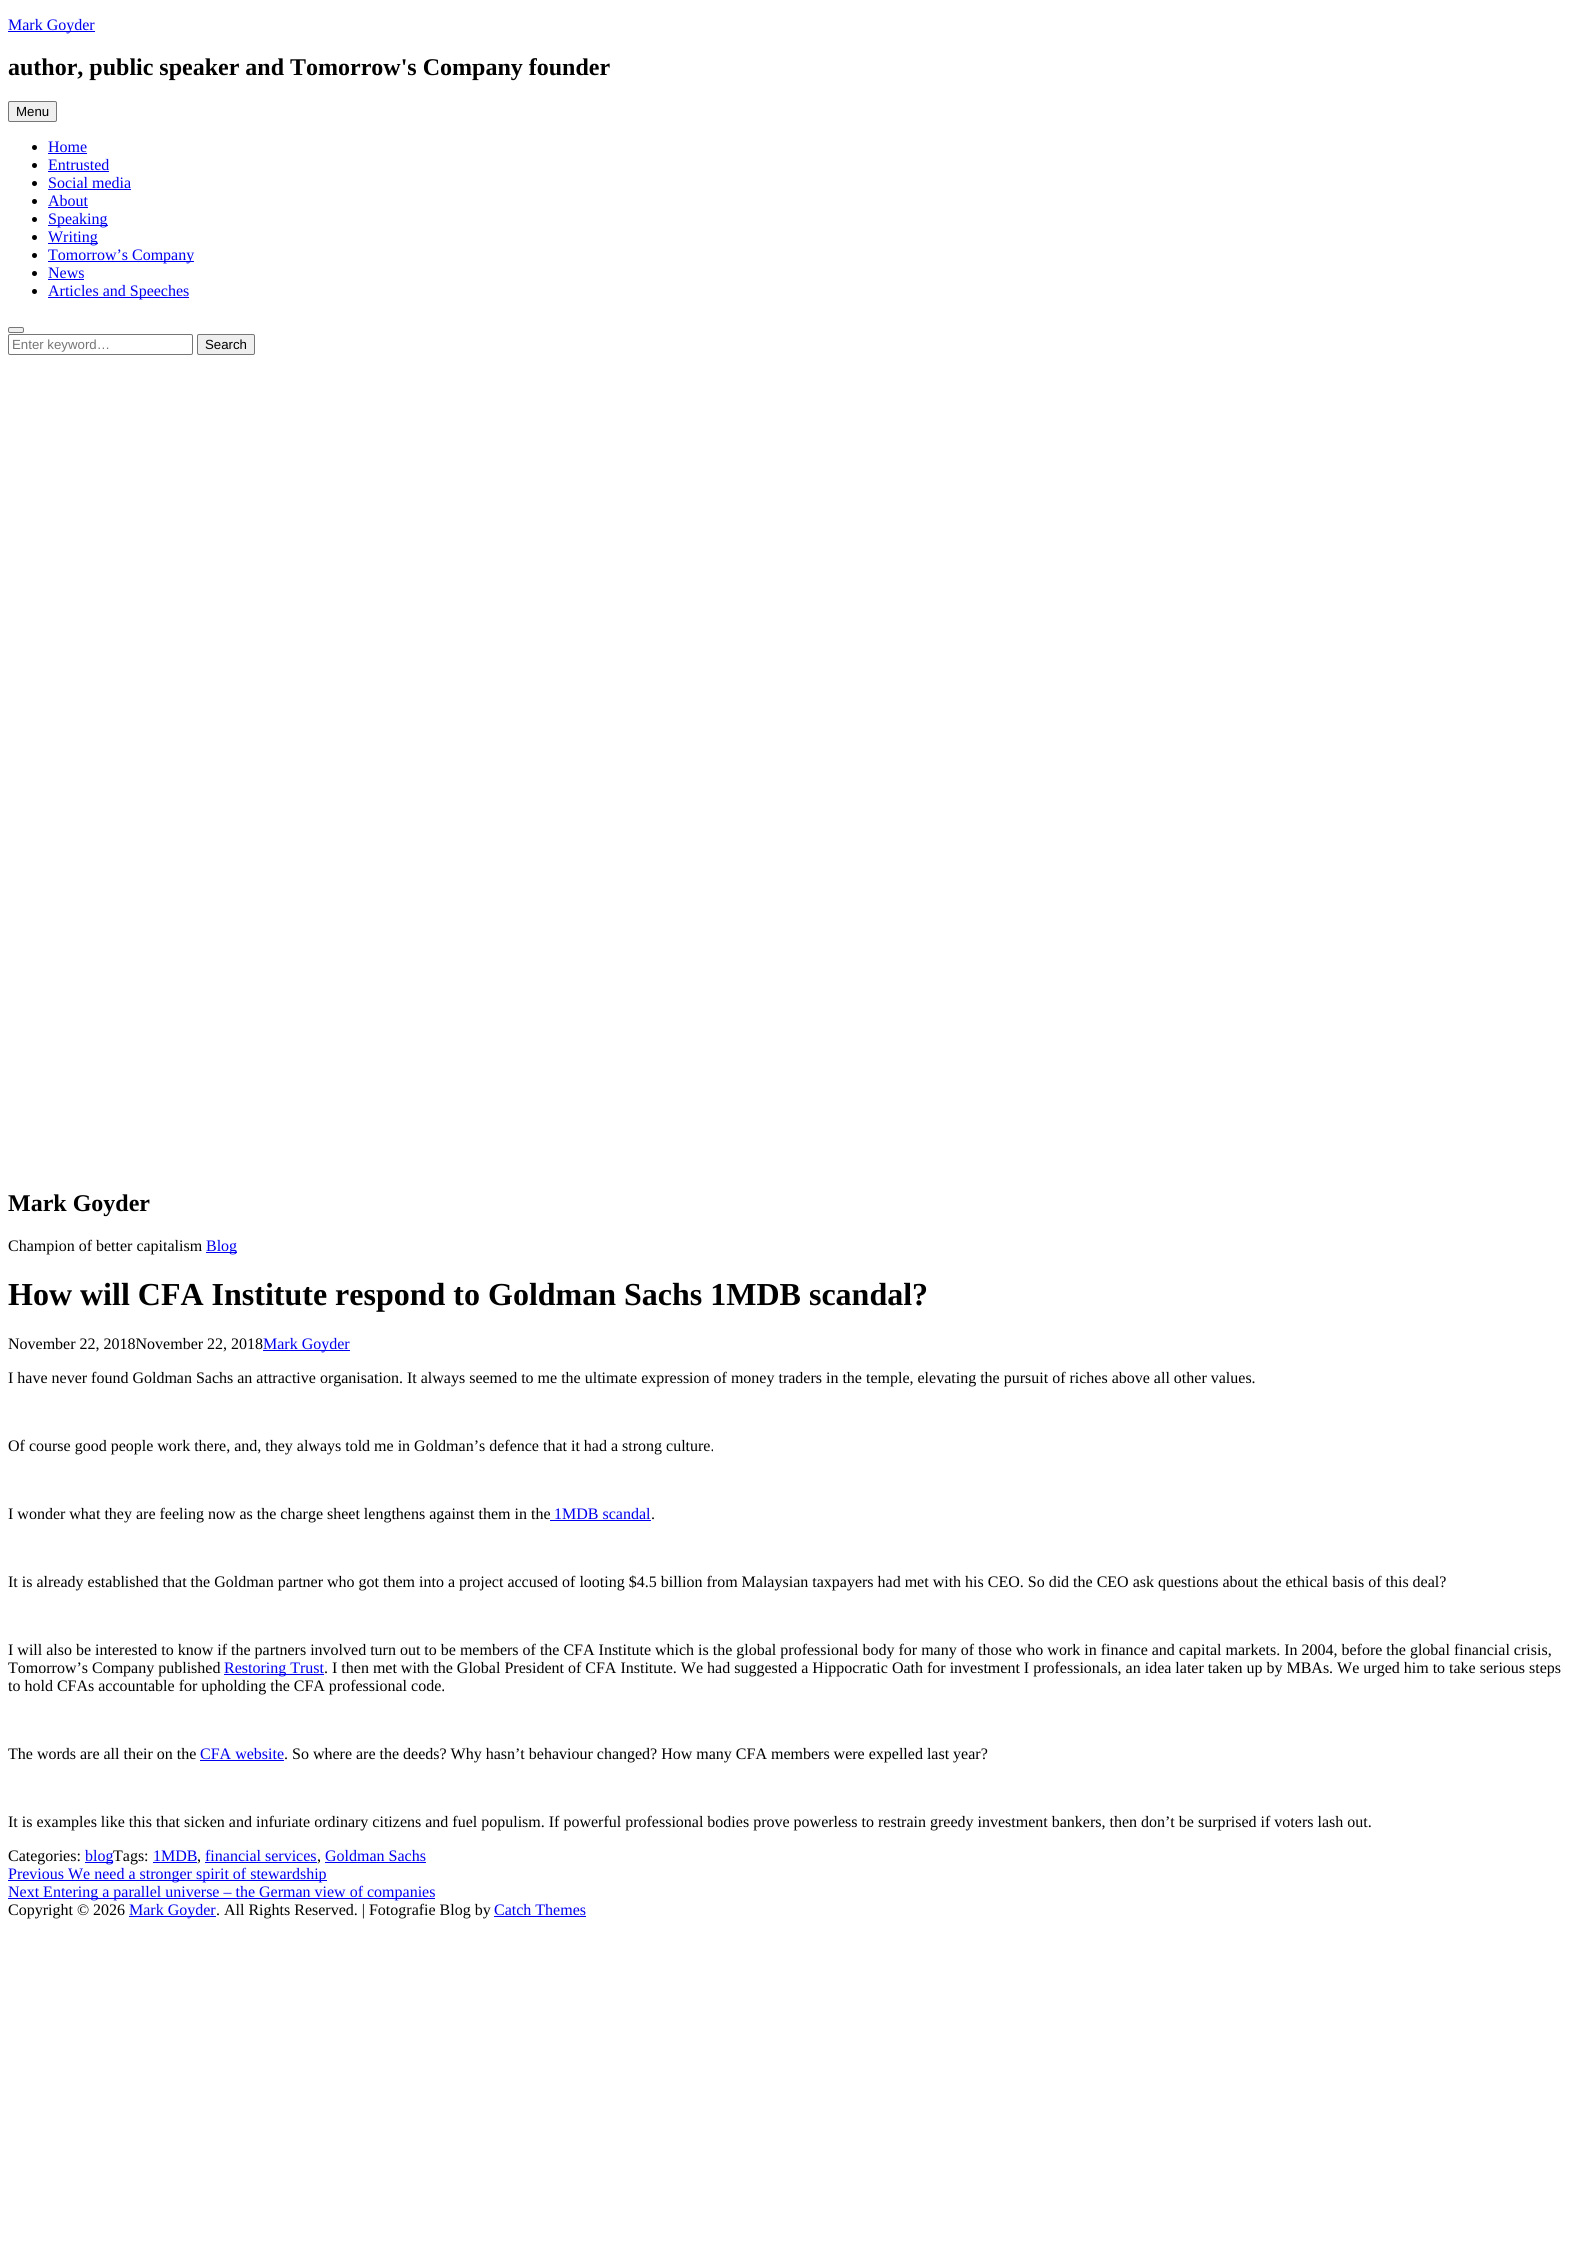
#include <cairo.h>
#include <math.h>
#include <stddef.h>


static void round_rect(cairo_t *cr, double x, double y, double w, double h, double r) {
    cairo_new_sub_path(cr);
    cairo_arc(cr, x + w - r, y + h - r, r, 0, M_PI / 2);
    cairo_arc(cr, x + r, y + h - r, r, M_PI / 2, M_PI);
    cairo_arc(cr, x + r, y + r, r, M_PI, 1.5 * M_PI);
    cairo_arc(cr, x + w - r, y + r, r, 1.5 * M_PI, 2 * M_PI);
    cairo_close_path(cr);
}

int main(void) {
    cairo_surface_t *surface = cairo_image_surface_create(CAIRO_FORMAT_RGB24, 1574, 2243);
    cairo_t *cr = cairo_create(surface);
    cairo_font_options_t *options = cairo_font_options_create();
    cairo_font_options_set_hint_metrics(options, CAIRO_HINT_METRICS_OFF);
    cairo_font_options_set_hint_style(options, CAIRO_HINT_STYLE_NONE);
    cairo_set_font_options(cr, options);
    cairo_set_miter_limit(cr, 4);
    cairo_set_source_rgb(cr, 1, 1, 1);
    cairo_paint(cr);
    cairo_set_source_rgb(cr, 0, 0, 0.933);
    cairo_rectangle(cr, 8, 31, 87, 1);
    cairo_fill(cr);
    cairo_select_font_face(cr, "Liberation Serif", CAIRO_FONT_SLANT_NORMAL, CAIRO_FONT_WEIGHT_NORMAL);
    cairo_set_font_size(cr, 16);
    cairo_move_to(cr, 8, 30);
    cairo_show_text(cr, "Mark Goyder");
    cairo_select_font_face(cr, "Liberation Serif", CAIRO_FONT_SLANT_NORMAL, CAIRO_FONT_WEIGHT_BOLD);
    cairo_set_font_size(cr, 24);
    cairo_set_source_rgb(cr, 0, 0, 0);
    cairo_move_to(cr, 8, 75);
    cairo_show_text(cr, "author, public speaker and Tomorrow's Company founder");
    cairo_set_source_rgb(cr, 0.937, 0.937, 0.937);
    round_rect(cr, 8.5, 101.5, 48, 20, 1.5);
    cairo_fill_preserve(cr);
    cairo_set_source_rgb(cr, 0.463, 0.463, 0.463);
    cairo_set_line_width(cr, 1);
    cairo_stroke(cr);
    cairo_select_font_face(cr, "Liberation Sans", CAIRO_FONT_SLANT_NORMAL, CAIRO_FONT_WEIGHT_NORMAL);
    cairo_set_font_size(cr, 13.25);
    cairo_set_source_rgb(cr, 0, 0, 0);
    cairo_move_to(cr, 16, 116);
    cairo_show_text(cr, "Menu");
    cairo_new_path(cr);
    cairo_arc(cr, 34.5, 147.5, 2.5, 0, 2 * M_PI);
    cairo_fill(cr);
    cairo_select_font_face(cr, "Liberation Serif", CAIRO_FONT_SLANT_NORMAL, CAIRO_FONT_WEIGHT_NORMAL);
    cairo_set_font_size(cr, 16);
    cairo_set_source_rgb(cr, 0, 0, 0.933);
    cairo_move_to(cr, 48, 152);
    cairo_show_text(cr, "Home");
    cairo_rectangle(cr, 48, 153, 39, 1);
    cairo_fill(cr);
    cairo_set_source_rgb(cr, 0, 0, 0);
    cairo_arc(cr, 34.5, 165.5, 2.5, 0, 2 * M_PI);
    cairo_fill(cr);
    cairo_set_source_rgb(cr, 0, 0, 0.933);
    cairo_move_to(cr, 48, 170);
    cairo_show_text(cr, "Entrusted");
    cairo_rectangle(cr, 48, 171, 61, 1);
    cairo_fill(cr);
    cairo_set_source_rgb(cr, 0, 0, 0);
    cairo_arc(cr, 34.5, 183.5, 2.5, 0, 2 * M_PI);
    cairo_fill(cr);
    cairo_set_source_rgb(cr, 0, 0, 0.933);
    cairo_move_to(cr, 48, 188);
    cairo_show_text(cr, "Social media");
    cairo_rectangle(cr, 48, 189, 83, 1);
    cairo_fill(cr);
    cairo_set_source_rgb(cr, 0, 0, 0);
    cairo_arc(cr, 34.5, 201.5, 2.5, 0, 2 * M_PI);
    cairo_fill(cr);
    cairo_set_source_rgb(cr, 0, 0, 0.933);
    cairo_move_to(cr, 48, 206);
    cairo_show_text(cr, "About");
    cairo_rectangle(cr, 48, 207, 40, 1);
    cairo_fill(cr);
    cairo_set_source_rgb(cr, 0, 0, 0);
    cairo_arc(cr, 34.5, 219.5, 2.5, 0, 2 * M_PI);
    cairo_fill(cr);
    cairo_set_source_rgb(cr, 0, 0, 0.933);
    cairo_rectangle(cr, 48, 225, 60, 1);
    cairo_fill(cr);
    cairo_move_to(cr, 48, 224);
    cairo_show_text(cr, "Speaking");
    cairo_set_source_rgb(cr, 0, 0, 0);
    cairo_new_path(cr);
    cairo_arc(cr, 34.5, 237.5, 2.5, 0, 2 * M_PI);
    cairo_fill(cr);
    cairo_set_source_rgb(cr, 0, 0, 0.933);
    cairo_rectangle(cr, 48, 243, 50, 1);
    cairo_fill(cr);
    cairo_move_to(cr, 48, 242);
    cairo_show_text(cr, "Writing");
    cairo_set_source_rgb(cr, 0, 0, 0);
    cairo_new_path(cr);
    cairo_arc(cr, 34.5, 255.5, 2.5, 0, 2 * M_PI);
    cairo_fill(cr);
    cairo_set_source_rgb(cr, 0, 0, 0.933);
    cairo_rectangle(cr, 48, 261, 146, 1);
    cairo_fill(cr);
    cairo_move_to(cr, 48, 260);
    cairo_show_text(cr, "Tomorrow’s Company");
    cairo_set_source_rgb(cr, 0, 0, 0);
    cairo_new_path(cr);
    cairo_arc(cr, 34.5, 273.5, 2.5, 0, 2 * M_PI);
    cairo_fill(cr);
    cairo_set_source_rgb(cr, 0, 0, 0.933);
    cairo_move_to(cr, 48, 278);
    cairo_show_text(cr, "News");
    cairo_rectangle(cr, 48, 279, 36, 1);
    cairo_fill(cr);
    cairo_set_source_rgb(cr, 0, 0, 0);
    cairo_arc(cr, 34.5, 291.5, 2.5, 0, 2 * M_PI);
    cairo_fill(cr);
    cairo_set_source_rgb(cr, 0, 0, 0.933);
    cairo_rectangle(cr, 48, 297, 141, 1);
    cairo_fill(cr);
    cairo_move_to(cr, 48, 296);
    cairo_show_text(cr, "Articles and Speeches");
    cairo_set_source_rgb(cr, 0.937, 0.937, 0.937);
    round_rect(cr, 8.5, 327.5, 15, 5, 1.5);
    cairo_fill_preserve(cr);
    cairo_set_source_rgb(cr, 0.463, 0.463, 0.463);
    cairo_stroke(cr);
    round_rect(cr, 8.5, 334.5, 184, 20, 1.5);
    cairo_stroke(cr);
    cairo_select_font_face(cr, "Liberation Sans", CAIRO_FONT_SLANT_NORMAL, CAIRO_FONT_WEIGHT_NORMAL);
    cairo_set_font_size(cr, 13.25);
    cairo_set_source_rgb(cr, 0.459, 0.459, 0.459);
    cairo_move_to(cr, 12, 349);
    cairo_show_text(cr, "Enter keyword…");
    cairo_set_source_rgb(cr, 0.937, 0.937, 0.937);
    round_rect(cr, 197.5, 334.5, 57, 20, 1.5);
    cairo_fill_preserve(cr);
    cairo_set_source_rgb(cr, 0.463, 0.463, 0.463);
    cairo_stroke(cr);
    cairo_set_source_rgb(cr, 0, 0, 0);
    cairo_move_to(cr, 205, 349);
    cairo_show_text(cr, "Search");
    cairo_select_font_face(cr, "Liberation Serif", CAIRO_FONT_SLANT_NORMAL, CAIRO_FONT_WEIGHT_BOLD);
    cairo_set_font_size(cr, 24);
    cairo_move_to(cr, 8, 1211);
    cairo_show_text(cr, "Mark Goyder");
    cairo_select_font_face(cr, "Liberation Serif", CAIRO_FONT_SLANT_NORMAL, CAIRO_FONT_WEIGHT_NORMAL);
    cairo_set_font_size(cr, 16);
    cairo_move_to(cr, 8, 1251);
    cairo_show_text(cr, "Champion of better capitalism");
    cairo_set_source_rgb(cr, 0, 0, 0.933);
    cairo_rectangle(cr, 206, 1252, 31, 1);
    cairo_fill(cr);
    cairo_move_to(cr, 206, 1251);
    cairo_show_text(cr, "Blog");
    cairo_select_font_face(cr, "Liberation Serif", CAIRO_FONT_SLANT_NORMAL, CAIRO_FONT_WEIGHT_BOLD);
    cairo_set_font_size(cr, 32);
    cairo_set_source_rgb(cr, 0, 0, 0);
    cairo_move_to(cr, 8, 1305);
    cairo_show_text(cr, "How will CFA Institute respond to Goldman Sachs 1MDB scandal?");
    cairo_select_font_face(cr, "Liberation Serif", CAIRO_FONT_SLANT_NORMAL, CAIRO_FONT_WEIGHT_NORMAL);
    cairo_set_font_size(cr, 16);
    cairo_move_to(cr, 8, 1349);
    cairo_show_text(cr, "November 22, 2018November 22, 2018");
    cairo_set_source_rgb(cr, 0, 0, 0.933);
    cairo_rectangle(cr, 263, 1350, 87, 1);
    cairo_fill(cr);
    cairo_move_to(cr, 263, 1349);
    cairo_show_text(cr, "Mark Goyder");
    cairo_set_source_rgb(cr, 0, 0, 0);
    cairo_move_to(cr, 8, 1383);
    cairo_show_text(cr, "I have never found Goldman Sachs an attractive organisation. It always seemed to me the ultimate expression of money traders in the temple, elevating the pursuit of riches above all other values.");
    cairo_move_to(cr, 8, 1451);
    cairo_show_text(cr, "Of course good people work there, and, they always told me in Goldman’s defence that it had a strong culture.");
    cairo_move_to(cr, 8, 1519);
    cairo_show_text(cr, "I wonder what they are feeling now as the charge sheet lengthens against them in the");
    cairo_set_source_rgb(cr, 0, 0, 0.933);
    cairo_move_to(cr, 554, 1519);
    cairo_show_text(cr, "1MDB scandal");
    cairo_rectangle(cr, 550, 1520, 101, 1);
    cairo_fill(cr);
    cairo_set_source_rgb(cr, 0, 0, 0);
    cairo_move_to(cr, 651, 1519);
    cairo_show_text(cr, ".");
    cairo_move_to(cr, 8, 1587);
    cairo_show_text(cr, "It is already established that the Goldman partner who got them into a project accused of looting $4.5 billion from Malaysian taxpayers had met with his CEO. So did the CEO ask questions about the ethical basis of this deal?");
    cairo_move_to(cr, 8, 1655);
    cairo_show_text(cr, "I will also be interested to know if the partners involved turn out to be members of the CFA Institute which is the global professional body for many of those who work in finance and capital markets. In 2004, before the global financial crisis,");
    cairo_move_to(cr, 8, 1673);
    cairo_show_text(cr, "Tomorrow’s Company published");
    cairo_set_source_rgb(cr, 0, 0, 0.933);
    cairo_rectangle(cr, 224, 1674, 100, 1);
    cairo_fill(cr);
    cairo_move_to(cr, 224, 1673);
    cairo_show_text(cr, "Restoring Trust");
    cairo_set_source_rgb(cr, 0, 0, 0);
    cairo_move_to(cr, 324, 1673);
    cairo_show_text(cr, ". I then met with the Global President of CFA Institute. We had suggested a Hippocratic Oath for investment I professionals, an idea later taken up by MBAs. We urged him to take serious steps");
    cairo_move_to(cr, 8, 1691);
    cairo_show_text(cr, "to hold CFAs accountable for upholding the CFA professional code.");
    cairo_move_to(cr, 8, 1759);
    cairo_show_text(cr, "The words are all their on the");
    cairo_set_source_rgb(cr, 0, 0, 0.933);
    cairo_move_to(cr, 200, 1759);
    cairo_show_text(cr, "CFA website");
    cairo_rectangle(cr, 200, 1760, 84, 1);
    cairo_fill(cr);
    cairo_set_source_rgb(cr, 0, 0, 0);
    cairo_move_to(cr, 284, 1759);
    cairo_show_text(cr, ". So where are the deeds? Why hasn’t behaviour changed? How many CFA members were expelled last year?");
    cairo_move_to(cr, 8, 1827);
    cairo_show_text(cr, "It is examples like this that sicken and infuriate ordinary citizens and fuel populism. If powerful professional bodies prove powerless to restrain greedy investment bankers, then don’t be surprised if voters lash out.");
    cairo_move_to(cr, 8, 1861);
    cairo_show_text(cr, "Categories:");
    cairo_set_source_rgb(cr, 0, 0, 0.933);
    cairo_rectangle(cr, 85, 1862, 28, 1);
    cairo_fill(cr);
    cairo_move_to(cr, 85, 1861);
    cairo_show_text(cr, "blog");
    cairo_set_source_rgb(cr, 0, 0, 0);
    cairo_move_to(cr, 113, 1861);
    cairo_show_text(cr, "Tags:");
    cairo_set_source_rgb(cr, 0, 0, 0.933);
    cairo_move_to(cr, 153, 1861);
    cairo_show_text(cr, "1MDB");
    cairo_set_source_rgb(cr, 0, 0, 0);
    cairo_move_to(cr, 197, 1861);
    cairo_show_text(cr, ",");
    cairo_set_source_rgb(cr, 0, 0, 0.933);
    cairo_rectangle(cr, 153, 1862, 44, 1);
    cairo_fill(cr);
    cairo_move_to(cr, 205, 1861);
    cairo_show_text(cr, "financial services");
    cairo_set_source_rgb(cr, 0, 0, 0);
    cairo_move_to(cr, 317, 1861);
    cairo_show_text(cr, ",");
    cairo_set_source_rgb(cr, 0, 0, 0.933);
    cairo_rectangle(cr, 205, 1862, 112, 1);
    cairo_fill(cr);
    cairo_rectangle(cr, 325, 1862, 101, 1);
    cairo_fill(cr);
    cairo_move_to(cr, 325, 1861);
    cairo_show_text(cr, "Goldman Sachs");
    cairo_rectangle(cr, 8, 1880, 319, 1);
    cairo_fill(cr);
    cairo_move_to(cr, 8, 1879);
    cairo_show_text(cr, "Previous We need a stronger spirit of stewardship");
    cairo_rectangle(cr, 8, 1898, 427, 1);
    cairo_fill(cr);
    cairo_move_to(cr, 8, 1897);
    cairo_show_text(cr, "Next Entering a parallel universe – the German view of companies");
    cairo_set_source_rgb(cr, 0, 0, 0);
    cairo_move_to(cr, 8, 1915);
    cairo_show_text(cr, "Copyright © 2026");
    cairo_set_source_rgb(cr, 0, 0, 0.933);
    cairo_rectangle(cr, 129, 1916, 87, 1);
    cairo_fill(cr);
    cairo_move_to(cr, 129, 1915);
    cairo_show_text(cr, "Mark Goyder");
    cairo_set_source_rgb(cr, 0, 0, 0);
    cairo_move_to(cr, 216, 1915);
    cairo_show_text(cr, ". All Rights Reserved. | Fotografie Blog by");
    cairo_set_source_rgb(cr, 0, 0, 0.933);
    cairo_move_to(cr, 494, 1915);
    cairo_show_text(cr, "Catch Themes");
    cairo_rectangle(cr, 494, 1916, 92, 1);
    cairo_fill(cr);
    cairo_surface_write_to_png(surface, "page.png");
    cairo_font_options_destroy(options);
    cairo_destroy(cr);
    cairo_surface_destroy(surface);
    return 0;
}
